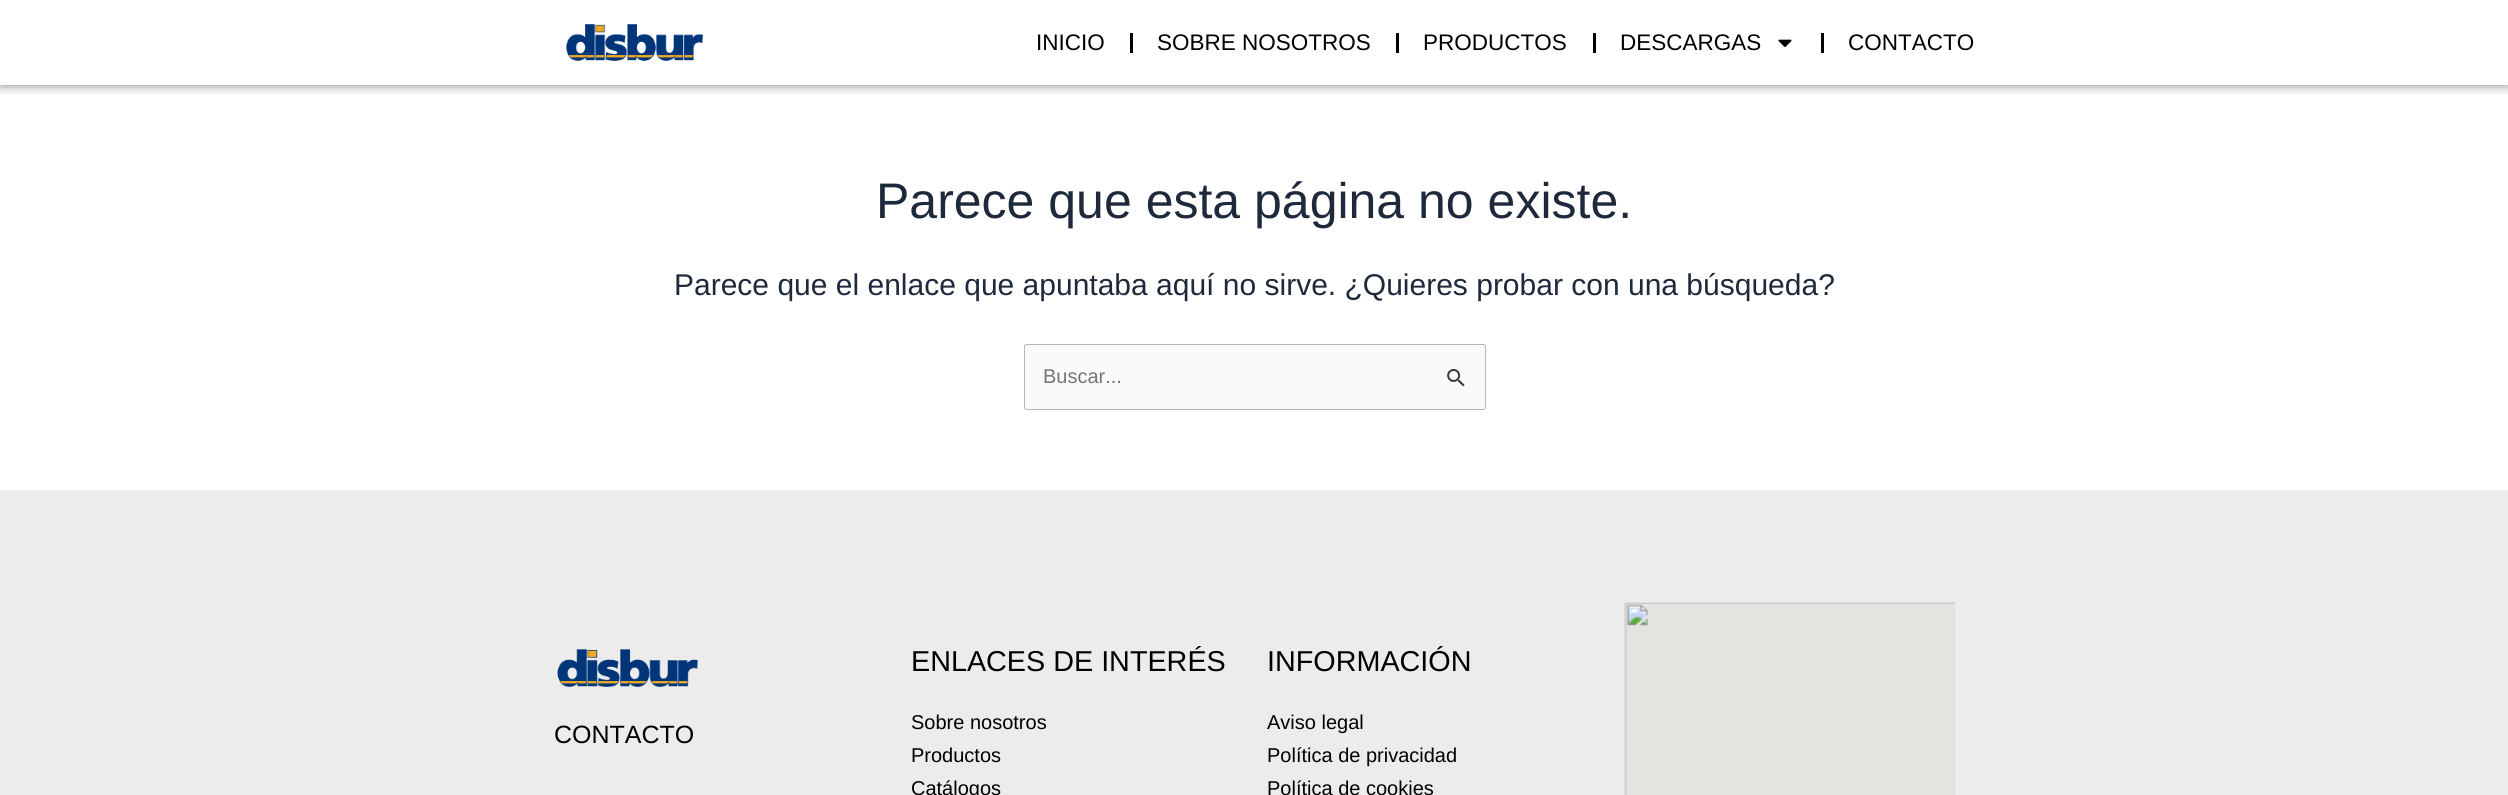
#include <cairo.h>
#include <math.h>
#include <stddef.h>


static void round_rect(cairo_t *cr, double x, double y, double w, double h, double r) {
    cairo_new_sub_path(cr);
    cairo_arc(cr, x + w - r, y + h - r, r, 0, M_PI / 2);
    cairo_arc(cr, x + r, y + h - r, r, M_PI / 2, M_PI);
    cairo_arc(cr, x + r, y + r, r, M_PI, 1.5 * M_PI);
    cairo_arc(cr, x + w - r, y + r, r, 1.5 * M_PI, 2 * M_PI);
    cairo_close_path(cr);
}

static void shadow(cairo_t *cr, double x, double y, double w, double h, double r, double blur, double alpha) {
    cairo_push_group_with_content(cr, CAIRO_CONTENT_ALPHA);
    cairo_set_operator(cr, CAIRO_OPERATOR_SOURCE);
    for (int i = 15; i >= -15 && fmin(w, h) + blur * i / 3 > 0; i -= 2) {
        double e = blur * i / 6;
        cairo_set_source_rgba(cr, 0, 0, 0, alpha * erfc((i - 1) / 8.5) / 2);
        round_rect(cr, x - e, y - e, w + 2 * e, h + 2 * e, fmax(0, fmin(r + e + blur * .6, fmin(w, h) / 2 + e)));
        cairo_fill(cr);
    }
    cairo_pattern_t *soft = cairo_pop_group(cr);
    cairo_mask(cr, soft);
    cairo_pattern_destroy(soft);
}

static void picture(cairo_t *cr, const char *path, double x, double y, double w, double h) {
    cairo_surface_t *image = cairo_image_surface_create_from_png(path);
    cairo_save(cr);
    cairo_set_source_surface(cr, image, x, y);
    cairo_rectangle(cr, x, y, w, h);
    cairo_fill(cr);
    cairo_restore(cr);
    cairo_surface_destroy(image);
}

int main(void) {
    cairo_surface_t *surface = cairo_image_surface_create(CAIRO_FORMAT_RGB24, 2508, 795);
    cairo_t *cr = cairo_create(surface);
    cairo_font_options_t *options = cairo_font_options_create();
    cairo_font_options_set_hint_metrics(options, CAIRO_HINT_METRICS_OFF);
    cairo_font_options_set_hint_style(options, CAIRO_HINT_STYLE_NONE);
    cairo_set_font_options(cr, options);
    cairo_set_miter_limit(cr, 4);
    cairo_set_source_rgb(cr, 1, 1, 1);
    cairo_paint(cr);
    cairo_save(cr);
    cairo_rectangle(cr, 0, 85, 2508, 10);
    cairo_clip(cr);
    cairo_set_source_rgb(cr, 0, 0, 0);
    shadow(cr, 0, 0, 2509, 85, 0, 6, 0.5);
    cairo_restore(cr);
    picture(cr, "img1.png", 566, 24, 137, 37);
    cairo_select_font_face(cr, "Liberation Sans", CAIRO_FONT_SLANT_NORMAL, CAIRO_FONT_WEIGHT_NORMAL);
    cairo_set_font_size(cr, 22.5);
    cairo_set_source_rgb(cr, 0, 0, 0);
    cairo_move_to(cr, 1036, 50);
    cairo_show_text(cr, "INICIO");
    cairo_rectangle(cr, 1130, 33, 3, 20);
    cairo_fill(cr);
    cairo_move_to(cr, 1157, 50);
    cairo_show_text(cr, "SOBRE NOSOTROS");
    cairo_rectangle(cr, 1396, 33, 3, 20);
    cairo_fill(cr);
    cairo_move_to(cr, 1423, 50);
    cairo_show_text(cr, "PRODUCTOS");
    cairo_rectangle(cr, 1593, 33, 3, 20);
    cairo_fill(cr);
    cairo_move_to(cr, 1620, 50);
    cairo_show_text(cr, "DESCARGAS");
    picture(cr, "img2.png", 1778, 39, 14, 8);
    cairo_rectangle(cr, 1821, 33, 3, 20);
    cairo_fill(cr);
    cairo_move_to(cr, 1848, 50);
    cairo_show_text(cr, "CONTACTO");
    cairo_set_font_size(cr, 50);
    cairo_set_source_rgb(cr, 0.118, 0.161, 0.231);
    cairo_move_to(cr, 876, 218);
    cairo_show_text(cr, "Parece que esta página no existe.");
    cairo_set_font_size(cr, 30);
    cairo_move_to(cr, 674, 295);
    cairo_show_text(cr, "Parece que el enlace que apuntaba aquí no sirve. ¿Quieres probar con una búsqueda?");
    cairo_set_source_rgb(cr, 0.98, 0.98, 0.98);
    round_rect(cr, 1024.5, 344.5, 461, 65, 2);
    cairo_fill_preserve(cr);
    cairo_set_source_rgb(cr, 0.678, 0.714, 0.745);
    cairo_set_line_width(cr, 1);
    cairo_stroke(cr);
    cairo_set_font_size(cr, 20);
    cairo_set_source_rgb(cr, 0.459, 0.459, 0.459);
    cairo_move_to(cr, 1043, 383);
    cairo_show_text(cr, "Buscar...");
    picture(cr, "img3.png", 1447, 369, 18, 18);
    cairo_set_source_rgb(cr, 0.922, 0.922, 0.922);
    cairo_rectangle(cr, 0, 490, 2508, 305);
    cairo_fill(cr);
    picture(cr, "img4.png", 557, 649, 141, 38);
    cairo_set_font_size(cr, 25);
    cairo_set_source_rgb(cr, 0, 0, 0);
    cairo_move_to(cr, 554, 743);
    cairo_show_text(cr, "CONTACTO");
    cairo_set_font_size(cr, 28.75);
    cairo_move_to(cr, 911, 671);
    cairo_show_text(cr, "ENLACES DE INTERÉS");
    cairo_set_font_size(cr, 20);
    cairo_move_to(cr, 911, 729);
    cairo_show_text(cr, "Sobre nosotros");
    cairo_move_to(cr, 911, 762);
    cairo_show_text(cr, "Productos");
    cairo_move_to(cr, 911, 795);
    cairo_show_text(cr, "Catálogos");
    cairo_set_font_size(cr, 28.75);
    cairo_move_to(cr, 1267, 671);
    cairo_show_text(cr, "INFORMACIÓN");
    cairo_set_font_size(cr, 20);
    cairo_move_to(cr, 1267, 729);
    cairo_show_text(cr, "Aviso legal");
    cairo_move_to(cr, 1267, 762);
    cairo_show_text(cr, "Política de privacidad");
    cairo_move_to(cr, 1267, 795);
    cairo_show_text(cr, "Política de cookies");
    picture(cr, "img5.png", 1624, 602, 331, 193);
    cairo_surface_write_to_png(surface, "page.png");
    cairo_font_options_destroy(options);
    cairo_destroy(cr);
    cairo_surface_destroy(surface);
    return 0;
}
